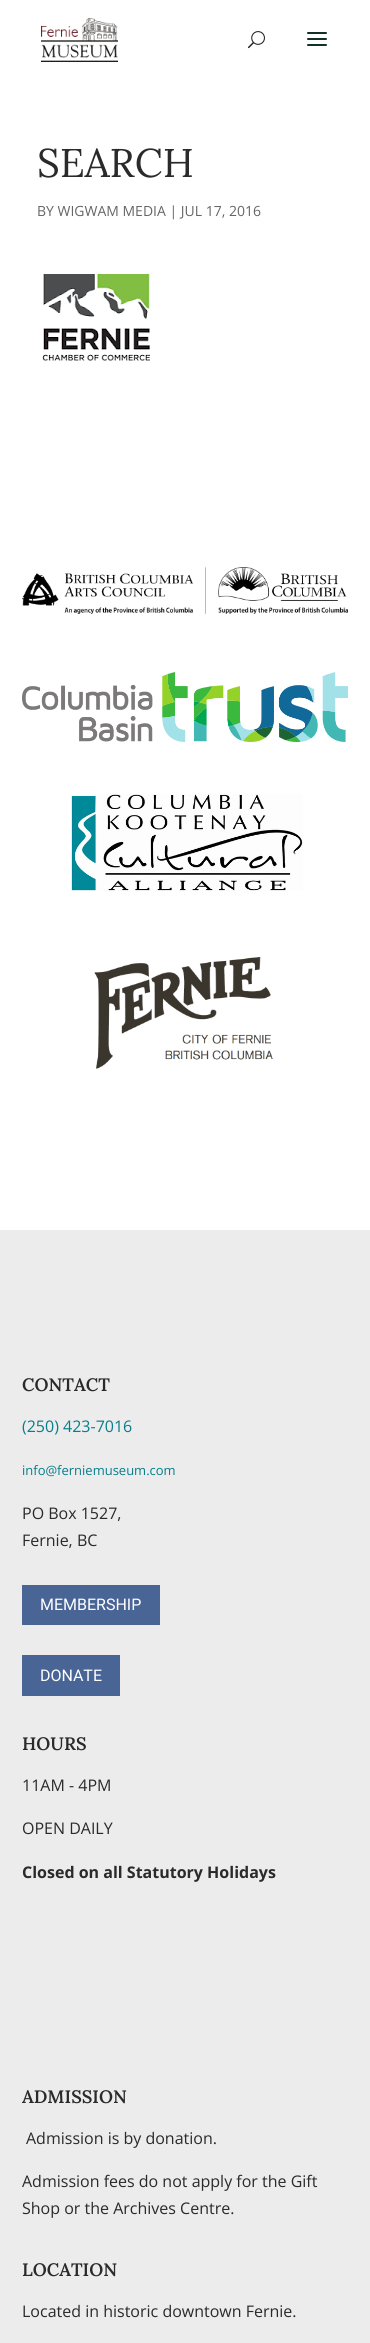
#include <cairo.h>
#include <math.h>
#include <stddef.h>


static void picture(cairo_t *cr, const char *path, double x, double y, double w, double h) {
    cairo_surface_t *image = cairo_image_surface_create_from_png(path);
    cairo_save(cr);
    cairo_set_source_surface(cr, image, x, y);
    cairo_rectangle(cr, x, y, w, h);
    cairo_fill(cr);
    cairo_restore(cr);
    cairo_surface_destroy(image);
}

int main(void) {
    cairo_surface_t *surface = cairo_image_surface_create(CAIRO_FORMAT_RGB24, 370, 2343);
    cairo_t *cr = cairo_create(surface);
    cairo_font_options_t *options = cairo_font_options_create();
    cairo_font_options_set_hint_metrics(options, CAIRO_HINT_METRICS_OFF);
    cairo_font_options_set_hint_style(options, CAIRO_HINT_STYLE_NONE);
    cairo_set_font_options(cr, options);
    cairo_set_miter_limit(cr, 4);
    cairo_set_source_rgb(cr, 1, 1, 1);
    cairo_paint(cr);
    picture(cr, "img1.png", 41, 18, 77, 44);
    picture(cr, "img2.png", 248, 31, 17, 18);
    picture(cr, "img3.png", 307, 32, 20, 14);
    cairo_select_font_face(cr, "Lora", CAIRO_FONT_SLANT_NORMAL, CAIRO_FONT_WEIGHT_NORMAL);
    cairo_set_font_size(cr, 40);
    cairo_set_source_rgb(cr, 0.165, 0.165, 0.165);
    cairo_move_to(cr, 37, 177);
    cairo_show_text(cr, "SEARCH");
    cairo_select_font_face(cr, "Open Sans", CAIRO_FONT_SLANT_NORMAL, CAIRO_FONT_WEIGHT_NORMAL);
    cairo_set_font_size(cr, 14);
    cairo_set_source_rgb(cr, 0.4, 0.4, 0.4);
    cairo_move_to(cr, 37, 216);
    cairo_show_text(cr, "BY WIGWAM MEDIA | JUL 17, 2016");
    picture(cr, "img4.png", 42, 274, 108, 87);
    picture(cr, "img5.png", 22, 567, 326, 47);
    picture(cr, "img6.png", 22, 672, 326, 70);
    picture(cr, "img7.png", 71, 794, 232, 97);
    picture(cr, "img8.png", 94, 957, 179, 112);
    cairo_set_source_rgb(cr, 0.922, 0.922, 0.922);
    cairo_rectangle(cr, 0, 1230, 370, 1113);
    cairo_fill(cr);
    cairo_select_font_face(cr, "Lora SemiBold", CAIRO_FONT_SLANT_NORMAL, CAIRO_FONT_WEIGHT_NORMAL);
    cairo_set_font_size(cr, 18);
    cairo_set_source_rgb(cr, 0.165, 0.165, 0.165);
    cairo_move_to(cr, 22, 1391);
    cairo_show_text(cr, "CONTACT");
    cairo_select_font_face(cr, "Open Sans", CAIRO_FONT_SLANT_NORMAL, CAIRO_FONT_WEIGHT_NORMAL);
    cairo_set_font_size(cr, 16);
    cairo_set_source_rgb(cr, 0.031, 0.494, 0.545);
    cairo_move_to(cr, 22, 1432);
    cairo_show_text(cr, "(250) 423-7016");
    cairo_set_font_size(cr, 13);
    cairo_move_to(cr, 22, 1475);
    cairo_show_text(cr, "info@ferniemuseum.com");
    cairo_set_font_size(cr, 16);
    cairo_set_source_rgb(cr, 0.165, 0.165, 0.165);
    cairo_move_to(cr, 22, 1519);
    cairo_show_text(cr, "PO Box 1527,");
    cairo_move_to(cr, 22, 1546);
    cairo_show_text(cr, "Fernie, BC");
    cairo_set_source_rgb(cr, 0.286, 0.396, 0.588);
    cairo_rectangle(cr, 22, 1585, 138, 40);
    cairo_fill(cr);
    cairo_select_font_face(cr, "Roboto", CAIRO_FONT_SLANT_NORMAL, CAIRO_FONT_WEIGHT_NORMAL);
    cairo_set_source_rgb(cr, 1, 1, 1);
    cairo_move_to(cr, 40, 1610);
    cairo_show_text(cr, "MEMBERSHIP");
    cairo_set_source_rgb(cr, 0.286, 0.396, 0.588);
    cairo_rectangle(cr, 22, 1655, 98, 41);
    cairo_fill(cr);
    cairo_set_source_rgb(cr, 1, 1, 1);
    cairo_move_to(cr, 40, 1681);
    cairo_show_text(cr, "DONATE");
    cairo_select_font_face(cr, "Lora SemiBold", CAIRO_FONT_SLANT_NORMAL, CAIRO_FONT_WEIGHT_NORMAL);
    cairo_set_font_size(cr, 18);
    cairo_set_source_rgb(cr, 0.165, 0.165, 0.165);
    cairo_move_to(cr, 22, 1750);
    cairo_show_text(cr, "HOURS");
    cairo_select_font_face(cr, "Open Sans", CAIRO_FONT_SLANT_NORMAL, CAIRO_FONT_WEIGHT_NORMAL);
    cairo_set_font_size(cr, 16);
    cairo_move_to(cr, 22, 1791);
    cairo_show_text(cr, "11AM - 4PM");
    cairo_move_to(cr, 22, 1834);
    cairo_show_text(cr, "OPEN DAILY");
    cairo_select_font_face(cr, "Open Sans", CAIRO_FONT_SLANT_NORMAL, CAIRO_FONT_WEIGHT_BOLD);
    cairo_move_to(cr, 22, 1878);
    cairo_show_text(cr, "Closed on all Statutory Holidays");
    cairo_select_font_face(cr, "Lora SemiBold", CAIRO_FONT_SLANT_NORMAL, CAIRO_FONT_WEIGHT_NORMAL);
    cairo_set_font_size(cr, 18);
    cairo_move_to(cr, 22, 2103);
    cairo_show_text(cr, "ADMISSION");
    cairo_select_font_face(cr, "Open Sans", CAIRO_FONT_SLANT_NORMAL, CAIRO_FONT_WEIGHT_NORMAL);
    cairo_set_font_size(cr, 16);
    cairo_move_to(cr, 26, 2144);
    cairo_show_text(cr, "Admission is by donation.");
    cairo_move_to(cr, 22, 2187);
    cairo_show_text(cr, "Admission fees do not apply for the Gift");
    cairo_move_to(cr, 22, 2214);
    cairo_show_text(cr, "Shop or the Archives Centre.");
    cairo_select_font_face(cr, "Lora SemiBold", CAIRO_FONT_SLANT_NORMAL, CAIRO_FONT_WEIGHT_NORMAL);
    cairo_set_font_size(cr, 18);
    cairo_move_to(cr, 22, 2276);
    cairo_show_text(cr, "LOCATION");
    cairo_select_font_face(cr, "Open Sans", CAIRO_FONT_SLANT_NORMAL, CAIRO_FONT_WEIGHT_NORMAL);
    cairo_set_font_size(cr, 16);
    cairo_move_to(cr, 22, 2317);
    cairo_show_text(cr, "Located in historic downtown Fernie.");
    cairo_surface_write_to_png(surface, "page.png");
    cairo_font_options_destroy(options);
    cairo_destroy(cr);
    cairo_surface_destroy(surface);
    return 0;
}
